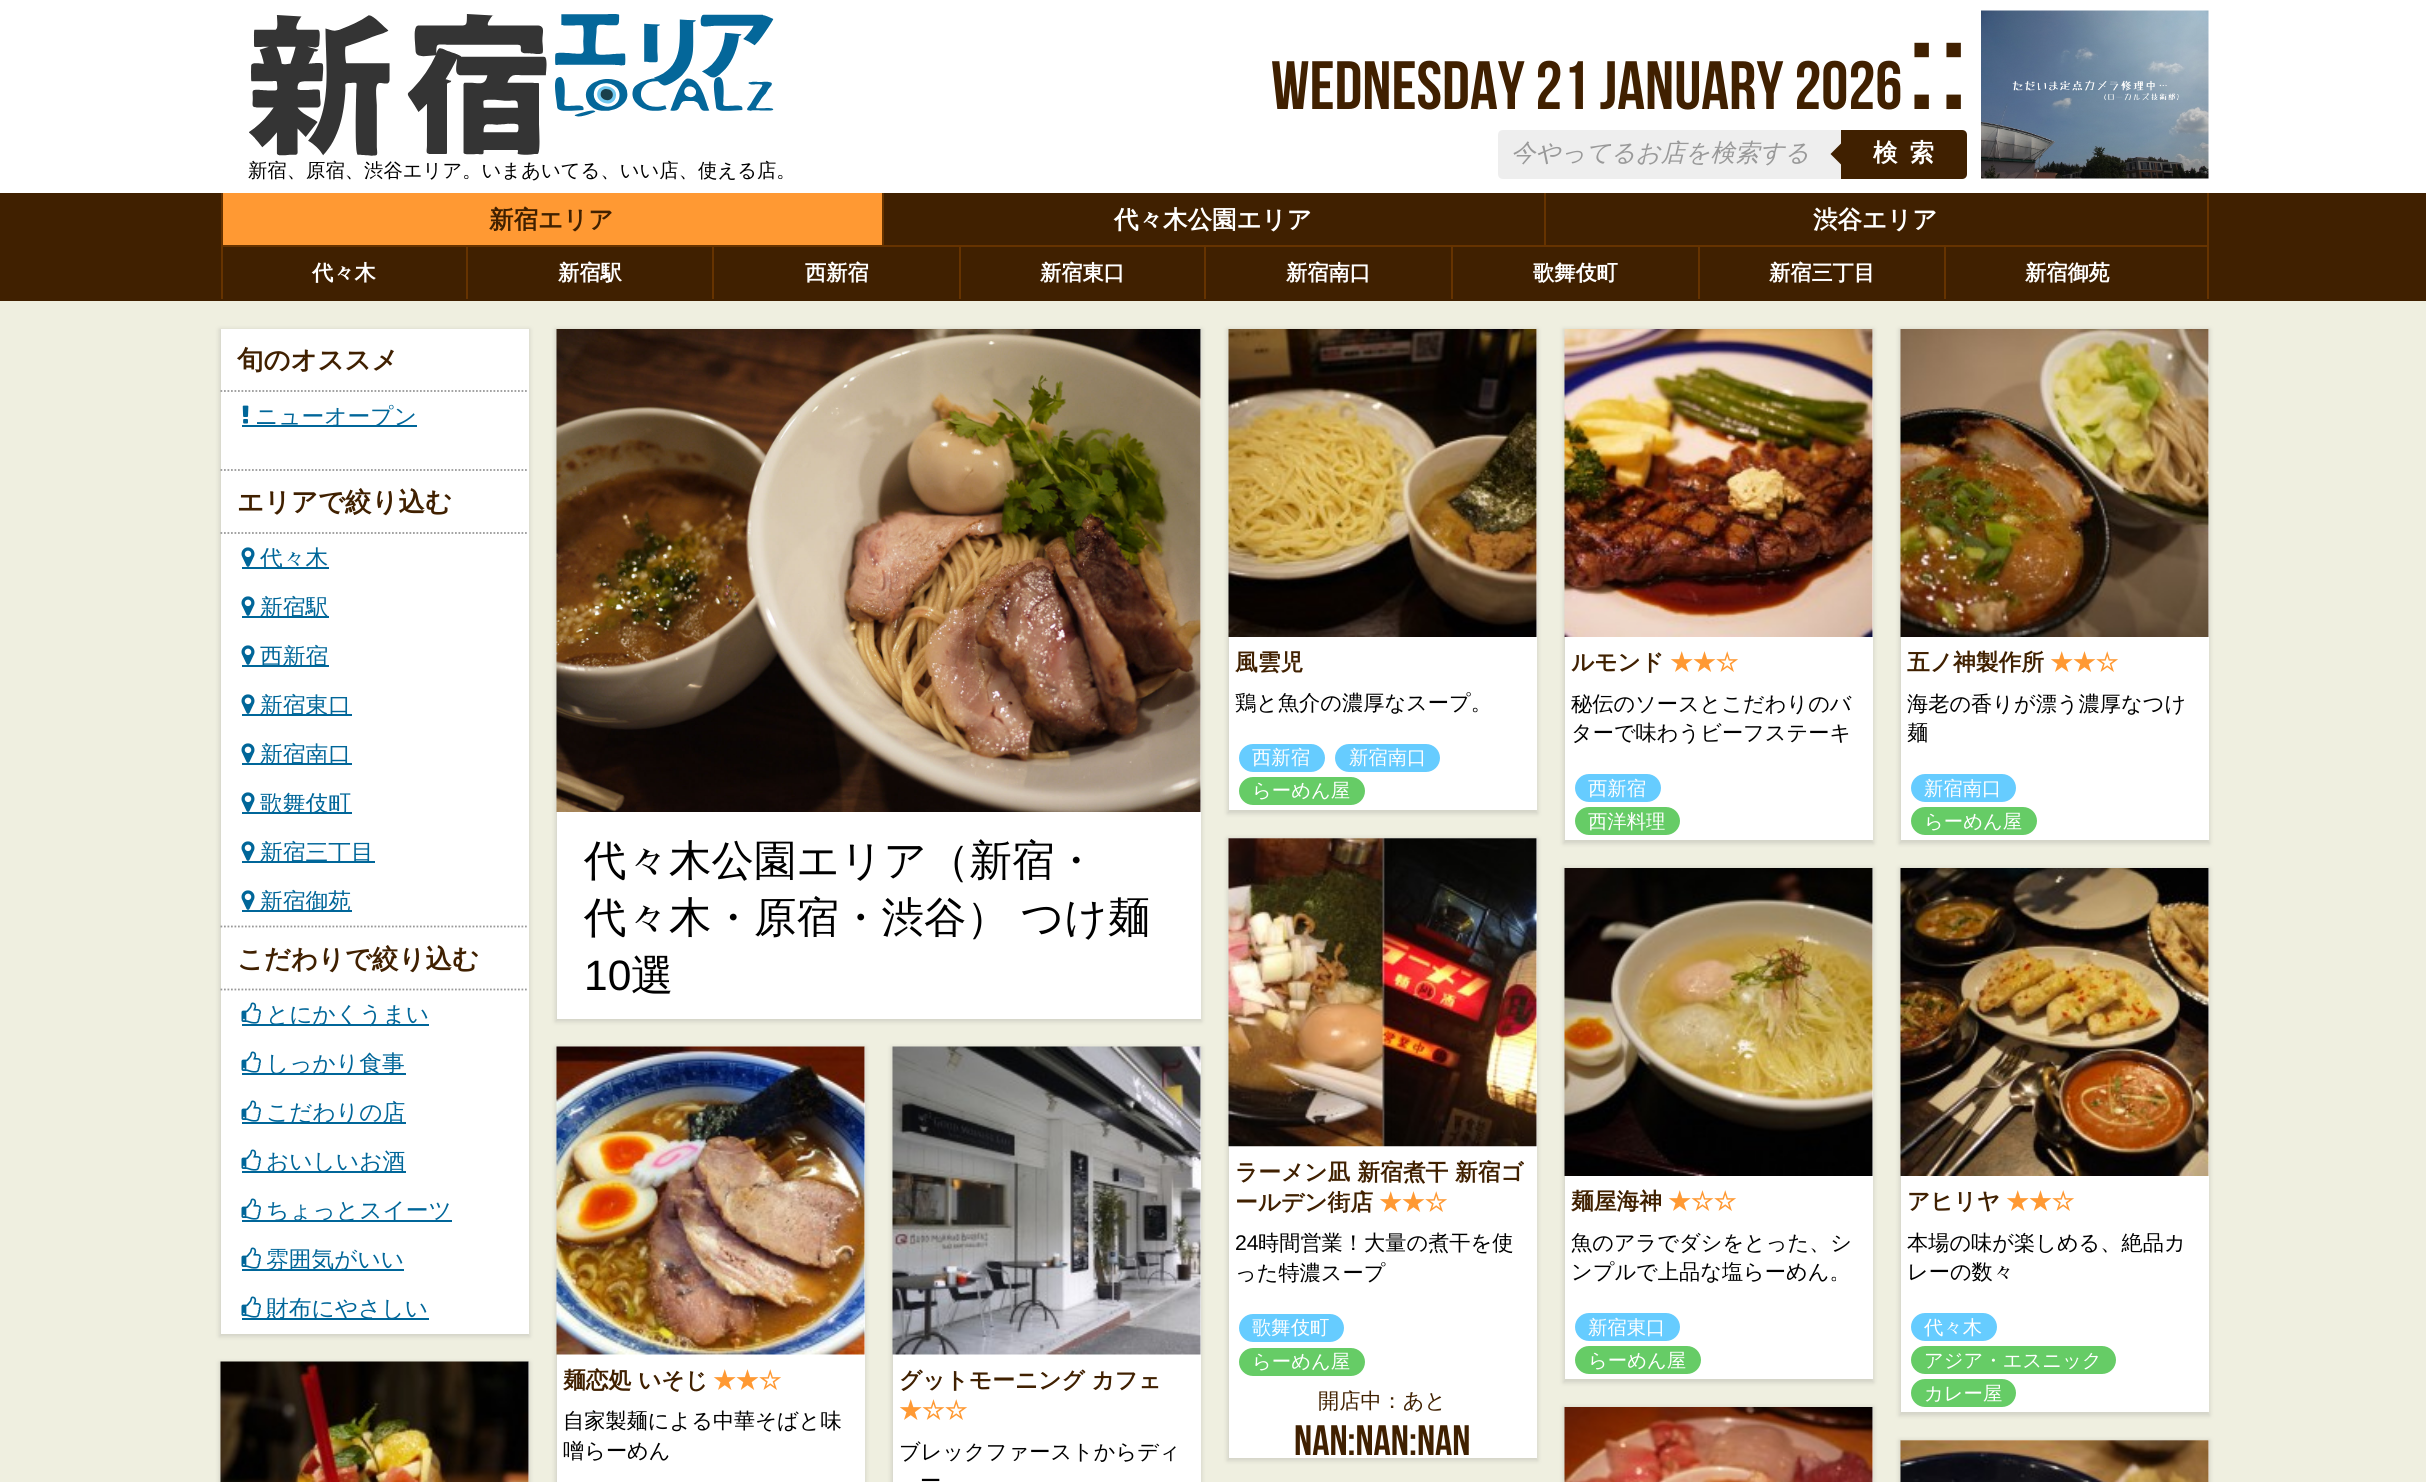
#include <cairo.h>
#include <math.h>
#include <stddef.h>


static void spaced_text(cairo_t *cr, double x, double y, const char *s, double letter, double word) {
    cairo_move_to(cr, x, y);
    while (*s) {
        char ch[5] = {0};
        int n = 0;
        do ch[n++] = *s++; while ((*s & 0xC0) == 0x80);
        cairo_show_text(cr, ch);
        cairo_rel_move_to(cr, letter + word * (*ch == ' '), 0);
    }
}

static void round_rect(cairo_t *cr, double x, double y, double w, double h, double r) {
    cairo_new_sub_path(cr);
    cairo_arc(cr, x + w - r, y + h - r, r, 0, M_PI / 2);
    cairo_arc(cr, x + r, y + h - r, r, M_PI / 2, M_PI);
    cairo_arc(cr, x + r, y + r, r, M_PI, 1.5 * M_PI);
    cairo_arc(cr, x + w - r, y + r, r, 1.5 * M_PI, 2 * M_PI);
    cairo_close_path(cr);
}

static void shadow(cairo_t *cr, double x, double y, double w, double h, double r, double blur, double alpha) {
    cairo_push_group_with_content(cr, CAIRO_CONTENT_ALPHA);
    cairo_set_operator(cr, CAIRO_OPERATOR_SOURCE);
    for (int i = 15; i >= -15 && fmin(w, h) + blur * i / 3 > 0; i -= 2) {
        double e = blur * i / 6;
        cairo_set_source_rgba(cr, 0, 0, 0, alpha * erfc((i - 1) / 8.5) / 2);
        round_rect(cr, x - e, y - e, w + 2 * e, h + 2 * e, fmax(0, fmin(r + e + blur * .6, fmin(w, h) / 2 + e)));
        cairo_fill(cr);
    }
    cairo_pattern_t *soft = cairo_pop_group(cr);
    cairo_mask(cr, soft);
    cairo_pattern_destroy(soft);
}

static void picture(cairo_t *cr, const char *path, double x, double y, double w, double h) {
    cairo_surface_t *image = cairo_image_surface_create_from_png(path);
    cairo_save(cr);
    cairo_set_source_surface(cr, image, x, y);
    cairo_rectangle(cr, x, y, w, h);
    cairo_fill(cr);
    cairo_restore(cr);
    cairo_surface_destroy(image);
}

int main(void) {
    cairo_surface_t *surface = cairo_image_surface_create(CAIRO_FORMAT_RGB24, 2426, 1482);
    cairo_t *cr = cairo_create(surface);
    cairo_font_options_t *options = cairo_font_options_create();
    cairo_font_options_set_hint_metrics(options, CAIRO_HINT_METRICS_OFF);
    cairo_font_options_set_hint_style(options, CAIRO_HINT_STYLE_NONE);
    cairo_set_font_options(cr, options);
    cairo_set_miter_limit(cr, 4);
    cairo_set_source_rgb(cr, 1, 1, 1);
    cairo_paint(cr);
    picture(cr, "img1.png", 249, 14, 525, 142);
    cairo_select_font_face(cr, "Bebas Neue", CAIRO_FONT_SLANT_NORMAL, CAIRO_FONT_WEIGHT_NORMAL);
    cairo_set_font_size(cr, 68.25);
    cairo_set_source_rgb(cr, 0.251, 0.125, 0);
    cairo_move_to(cr, 1271, 109);
    cairo_show_text(cr, "Wednesday 21 January 2026");
    cairo_set_font_size(cr, 136);
    cairo_move_to(cr, 1909, 109);
    cairo_show_text(cr, ":");
    cairo_move_to(cr, 1941, 109);
    cairo_show_text(cr, ":");
    picture(cr, "img2.png", 1981, 10, 228, 169);
    cairo_set_source_rgb(cr, 0.933, 0.933, 0.933);
    cairo_new_path(cr);
    cairo_move_to(cr, 1503, 130);
    cairo_line_to(cr, 1841, 130);
    cairo_line_to(cr, 1841, 179);
    cairo_line_to(cr, 1503, 179);
    cairo_curve_to(cr, 1500, 179, 1498, 177, 1498, 174);
    cairo_line_to(cr, 1498, 135);
    cairo_curve_to(cr, 1498, 132, 1500, 130, 1503, 130);
    cairo_close_path(cr);
    cairo_fill(cr);
    cairo_select_font_face(cr, "WenQuanYi Zen Hei Medium", CAIRO_FONT_SLANT_ITALIC, CAIRO_FONT_WEIGHT_NORMAL);
    cairo_set_font_size(cr, 24.5);
    cairo_set_source_rgb(cr, 0.6, 0.6, 0.6);
    cairo_move_to(cr, 1511, 161);
    cairo_show_text(cr, "今やってるお店を検索する");
    cairo_set_source_rgb(cr, 0.251, 0.125, 0);
    cairo_new_path(cr);
    cairo_move_to(cr, 1841, 130);
    cairo_line_to(cr, 1962, 130);
    cairo_curve_to(cr, 1965, 130, 1967, 132, 1967, 135);
    cairo_line_to(cr, 1967, 174);
    cairo_curve_to(cr, 1967, 177, 1965, 179, 1962, 179);
    cairo_line_to(cr, 1841, 179);
    cairo_close_path(cr);
    cairo_fill(cr);
    cairo_new_path(cr);
    cairo_move_to(cr, 1844.5, 140);
    cairo_line_to(cr, 1844.5, 168);
    cairo_line_to(cr, 1830.5, 154);
    cairo_close_path(cr);
    cairo_fill(cr);
    cairo_select_font_face(cr, "WenQuanYi Zen Hei", CAIRO_FONT_SLANT_NORMAL, CAIRO_FONT_WEIGHT_BOLD);
    cairo_set_source_rgb(cr, 1, 1, 1);
    spaced_text(cr, 1873, 161, "検索", 12, 0);
    cairo_select_font_face(cr, "WenQuanYi Zen Hei Medium", CAIRO_FONT_SLANT_NORMAL, CAIRO_FONT_WEIGHT_NORMAL);
    cairo_set_font_size(cr, 19.35);
    cairo_set_source_rgb(cr, 0, 0, 0);
    cairo_move_to(cr, 248, 177);
    cairo_show_text(cr, "新宿、原宿、渋谷エリア。いまあいてる、いい店、使える店。");
    cairo_set_source_rgb(cr, 0.251, 0.125, 0);
    cairo_rectangle(cr, 0, 193, 2426, 108);
    cairo_fill(cr);
    cairo_set_source_rgb(cr, 0.4, 0.2, 0);
    cairo_rectangle(cr, 2207, 193, 2, 52);
    cairo_fill(cr);
    cairo_set_source_rgb(cr, 1, 0.6, 0.2);
    cairo_rectangle(cr, 223, 193, 659, 52);
    cairo_fill(cr);
    cairo_set_source_rgb(cr, 0.4, 0.2, 0);
    cairo_rectangle(cr, 221, 193, 2, 52);
    cairo_fill(cr);
    cairo_select_font_face(cr, "WenQuanYi Zen Hei", CAIRO_FONT_SLANT_NORMAL, CAIRO_FONT_WEIGHT_BOLD);
    cairo_set_font_size(cr, 24.5);
    cairo_set_source_rgb(cr, 0.251, 0.125, 0);
    cairo_move_to(cr, 489, 228);
    cairo_show_text(cr, "新宿エリア");
    cairo_set_source_rgb(cr, 0.4, 0.2, 0);
    cairo_rectangle(cr, 882, 193, 2, 52);
    cairo_fill(cr);
    cairo_set_source_rgb(cr, 1, 1, 1);
    cairo_move_to(cr, 1114, 228);
    cairo_show_text(cr, "代々木公園エリア");
    cairo_set_source_rgb(cr, 0.4, 0.2, 0);
    cairo_rectangle(cr, 1544, 193, 2, 52);
    cairo_fill(cr);
    cairo_set_source_rgb(cr, 1, 1, 1);
    cairo_move_to(cr, 1813, 228);
    cairo_show_text(cr, "渋谷エリア");
    cairo_set_source_rgb(cr, 0.4, 0.2, 0);
    cairo_rectangle(cr, 221, 245, 1988, 2);
    cairo_fill(cr);
    cairo_rectangle(cr, 2207, 245, 2, 54);
    cairo_fill(cr);
    cairo_rectangle(cr, 221, 247, 2, 52);
    cairo_fill(cr);
    cairo_set_font_size(cr, 21.2);
    cairo_set_source_rgb(cr, 1, 1, 1);
    cairo_move_to(cr, 312, 280);
    cairo_show_text(cr, "代々木");
    cairo_set_source_rgb(cr, 0.4, 0.2, 0);
    cairo_rectangle(cr, 466, 247, 2, 52);
    cairo_fill(cr);
    cairo_set_source_rgb(cr, 1, 1, 1);
    cairo_move_to(cr, 558, 280);
    cairo_show_text(cr, "新宿駅");
    cairo_set_source_rgb(cr, 0.4, 0.2, 0);
    cairo_rectangle(cr, 712, 247, 2, 52);
    cairo_fill(cr);
    cairo_set_source_rgb(cr, 1, 1, 1);
    cairo_move_to(cr, 805, 280);
    cairo_show_text(cr, "西新宿");
    cairo_set_source_rgb(cr, 0.4, 0.2, 0);
    cairo_rectangle(cr, 959, 247, 2, 52);
    cairo_fill(cr);
    cairo_set_source_rgb(cr, 1, 1, 1);
    cairo_move_to(cr, 1040, 280);
    cairo_show_text(cr, "新宿東口");
    cairo_set_source_rgb(cr, 0.4, 0.2, 0);
    cairo_rectangle(cr, 1204, 247, 2, 52);
    cairo_fill(cr);
    cairo_set_source_rgb(cr, 1, 1, 1);
    cairo_move_to(cr, 1286, 280);
    cairo_show_text(cr, "新宿南口");
    cairo_set_source_rgb(cr, 0.4, 0.2, 0);
    cairo_rectangle(cr, 1451, 247, 2, 52);
    cairo_fill(cr);
    cairo_set_source_rgb(cr, 1, 1, 1);
    cairo_move_to(cr, 1533, 280);
    cairo_show_text(cr, "歌舞伎町");
    cairo_set_source_rgb(cr, 0.4, 0.2, 0);
    cairo_rectangle(cr, 1698, 247, 2, 52);
    cairo_fill(cr);
    cairo_set_source_rgb(cr, 1, 1, 1);
    cairo_move_to(cr, 1769, 280);
    cairo_show_text(cr, "新宿三丁目");
    cairo_set_source_rgb(cr, 0.4, 0.2, 0);
    cairo_rectangle(cr, 1944, 247, 2, 52);
    cairo_fill(cr);
    cairo_set_source_rgb(cr, 1, 1, 1);
    cairo_move_to(cr, 2025, 280);
    cairo_show_text(cr, "新宿御苑");
    cairo_set_source_rgb(cr, 0.937, 0.937, 0.878);
    cairo_rectangle(cr, 0, 301, 2426, 1181);
    cairo_fill(cr);
    cairo_set_source_rgb(cr, 0.4, 0.4, 0.4);
    shadow(cr, 219, 329, 311, 1008, 0, 2, 0.2);
    cairo_set_source_rgb(cr, 1, 1, 1);
    cairo_rectangle(cr, 221, 329, 308, 1005);
    cairo_fill(cr);
    cairo_new_path(cr);
    cairo_move_to(cr, 220.5, 391);
    cairo_line_to(cr, 528.5, 391);
    cairo_set_source_rgb(cr, 0.6, 0.6, 0.6);
    cairo_set_line_width(cr, 1.8);
    cairo_set_dash(cr, (double[]){1.75, 1.75}, 2, 0);
    cairo_stroke(cr);
    cairo_set_font_size(cr, 26.4);
    cairo_set_source_rgb(cr, 0.251, 0.125, 0);
    cairo_move_to(cr, 237, 369);
    cairo_show_text(cr, "旬のオススメ");
    cairo_set_source_rgb(cr, 0, 0.4, 0.6);
    cairo_rectangle(cr, 242, 425, 175, 2);
    cairo_fill(cr);
    cairo_select_font_face(cr, "WenQuanYi Zen Hei Medium", CAIRO_FONT_SLANT_NORMAL, CAIRO_FONT_WEIGHT_NORMAL);
    cairo_set_font_size(cr, 22.75);
    cairo_move_to(cr, 255, 424);
    cairo_show_text(cr, "ニューオープン");
    picture(cr, "img3.png", 242, 405, 7, 19);
    cairo_new_path(cr);
    cairo_move_to(cr, 220.5, 470);
    cairo_line_to(cr, 528.5, 470);
    cairo_set_source_rgb(cr, 0.6, 0.6, 0.6);
    cairo_stroke(cr);
    cairo_new_path(cr);
    cairo_move_to(cr, 220.5, 533);
    cairo_line_to(cr, 528.5, 533);
    cairo_stroke(cr);
    cairo_select_font_face(cr, "WenQuanYi Zen Hei", CAIRO_FONT_SLANT_NORMAL, CAIRO_FONT_WEIGHT_BOLD);
    cairo_set_font_size(cr, 26.4);
    cairo_set_source_rgb(cr, 0.251, 0.125, 0);
    cairo_move_to(cr, 237, 511);
    cairo_show_text(cr, "エリアで絞り込む");
    cairo_set_source_rgb(cr, 0, 0.4, 0.6);
    cairo_rectangle(cr, 242, 567, 87, 2);
    cairo_fill(cr);
    picture(cr, "img4.png", 241, 547, 14, 20);
    cairo_select_font_face(cr, "WenQuanYi Zen Hei Medium", CAIRO_FONT_SLANT_NORMAL, CAIRO_FONT_WEIGHT_NORMAL);
    cairo_set_font_size(cr, 22.75);
    cairo_move_to(cr, 260, 566);
    cairo_show_text(cr, "代々木");
    cairo_rectangle(cr, 242, 616, 87, 2);
    cairo_fill(cr);
    cairo_move_to(cr, 260, 615);
    cairo_show_text(cr, "新宿駅");
    picture(cr, "img4.png", 241, 596, 14, 20);
    cairo_rectangle(cr, 242, 665, 87, 2);
    cairo_fill(cr);
    cairo_move_to(cr, 260, 664);
    cairo_show_text(cr, "西新宿");
    picture(cr, "img4.png", 241, 645, 14, 20);
    cairo_rectangle(cr, 242, 714, 110, 2);
    cairo_fill(cr);
    cairo_move_to(cr, 260, 713);
    cairo_show_text(cr, "新宿東口");
    picture(cr, "img4.png", 241, 694, 14, 20);
    cairo_rectangle(cr, 242, 763, 110, 2);
    cairo_fill(cr);
    cairo_move_to(cr, 260, 762);
    cairo_show_text(cr, "新宿南口");
    picture(cr, "img4.png", 241, 743, 14, 20);
    cairo_rectangle(cr, 242, 812, 110, 2);
    cairo_fill(cr);
    picture(cr, "img4.png", 241, 792, 14, 20);
    cairo_move_to(cr, 260, 811);
    cairo_show_text(cr, "歌舞伎町");
    cairo_rectangle(cr, 242, 861, 133, 2);
    cairo_fill(cr);
    cairo_move_to(cr, 260, 860);
    cairo_show_text(cr, "新宿三丁目");
    picture(cr, "img4.png", 241, 841, 14, 20);
    cairo_rectangle(cr, 242, 910, 110, 2);
    cairo_fill(cr);
    cairo_move_to(cr, 260, 909);
    cairo_show_text(cr, "新宿御苑");
    picture(cr, "img4.png", 241, 890, 14, 20);
    cairo_new_path(cr);
    cairo_move_to(cr, 220.5, 926.5);
    cairo_line_to(cr, 528.5, 926.5);
    cairo_set_source_rgb(cr, 0.6, 0.6, 0.6);
    cairo_stroke(cr);
    cairo_new_path(cr);
    cairo_move_to(cr, 220.5, 989.5);
    cairo_line_to(cr, 528.5, 989.5);
    cairo_stroke(cr);
    cairo_select_font_face(cr, "WenQuanYi Zen Hei", CAIRO_FONT_SLANT_NORMAL, CAIRO_FONT_WEIGHT_BOLD);
    cairo_set_font_size(cr, 26.4);
    cairo_set_source_rgb(cr, 0.251, 0.125, 0);
    cairo_move_to(cr, 237, 968);
    cairo_show_text(cr, "こだわりで絞り込む");
    cairo_set_source_rgb(cr, 0, 0.4, 0.6);
    cairo_rectangle(cr, 242, 1024, 187, 2);
    cairo_fill(cr);
    picture(cr, "img5.png", 241, 1002, 20, 22);
    cairo_select_font_face(cr, "WenQuanYi Zen Hei Medium", CAIRO_FONT_SLANT_NORMAL, CAIRO_FONT_WEIGHT_NORMAL);
    cairo_set_font_size(cr, 22.75);
    cairo_move_to(cr, 266, 1022);
    cairo_show_text(cr, "とにかくうまい");
    cairo_rectangle(cr, 242, 1073, 164, 2);
    cairo_fill(cr);
    picture(cr, "img6.png", 241, 1051, 20, 22);
    cairo_move_to(cr, 266, 1071);
    cairo_show_text(cr, "しっかり食事");
    cairo_rectangle(cr, 242, 1122, 164, 2);
    cairo_fill(cr);
    picture(cr, "img6.png", 241, 1100, 20, 22);
    cairo_move_to(cr, 266, 1120);
    cairo_show_text(cr, "こだわりの店");
    cairo_rectangle(cr, 242, 1171, 164, 2);
    cairo_fill(cr);
    picture(cr, "img6.png", 241, 1149, 20, 22);
    cairo_move_to(cr, 266, 1169);
    cairo_show_text(cr, "おいしいお酒");
    cairo_rectangle(cr, 242, 1220, 210, 2);
    cairo_fill(cr);
    picture(cr, "img6.png", 241, 1198, 20, 22);
    cairo_move_to(cr, 266, 1218);
    cairo_show_text(cr, "ちょっとスイーツ");
    cairo_rectangle(cr, 242, 1269, 162, 2);
    cairo_fill(cr);
    picture(cr, "img6.png", 241, 1247, 20, 22);
    cairo_move_to(cr, 266, 1267);
    cairo_show_text(cr, "雰囲気がいい");
    cairo_rectangle(cr, 242, 1318, 187, 2);
    cairo_fill(cr);
    picture(cr, "img6.png", 241, 1296, 20, 22);
    cairo_move_to(cr, 266, 1316);
    cairo_show_text(cr, "財布にやさしい");
    cairo_set_source_rgb(cr, 0.4, 0.4, 0.4);
    shadow(cr, 1227, 329, 311, 485, 0, 2, 0.2);
    cairo_set_source_rgb(cr, 1, 1, 1);
    cairo_rectangle(cr, 1229, 329, 308, 481);
    cairo_fill(cr);
    picture(cr, "img7.png", 1228, 329, 309, 308);
    cairo_select_font_face(cr, "WenQuanYi Zen Hei", CAIRO_FONT_SLANT_NORMAL, CAIRO_FONT_WEIGHT_BOLD);
    cairo_set_source_rgb(cr, 0.251, 0.125, 0);
    cairo_move_to(cr, 1235, 670);
    cairo_show_text(cr, "風雲児");
    cairo_select_font_face(cr, "WenQuanYi Zen Hei Medium", CAIRO_FONT_SLANT_NORMAL, CAIRO_FONT_WEIGHT_NORMAL);
    cairo_set_font_size(cr, 21.2);
    cairo_set_source_rgb(cr, 0, 0, 0);
    cairo_move_to(cr, 1235, 710);
    cairo_show_text(cr, "鶏と魚介の濃厚なスープ。");
    cairo_set_source_rgb(cr, 0.4, 0.8, 1);
    round_rect(cr, 1239, 744, 86, 28, 14);
    cairo_fill(cr);
    cairo_set_font_size(cr, 19.35);
    cairo_set_source_rgb(cr, 1, 1, 1);
    cairo_move_to(cr, 1252, 764);
    cairo_show_text(cr, "西新宿");
    cairo_set_source_rgb(cr, 0.4, 0.8, 1);
    round_rect(cr, 1335, 744, 105, 28, 14);
    cairo_fill(cr);
    cairo_set_source_rgb(cr, 1, 1, 1);
    cairo_move_to(cr, 1349, 764);
    cairo_show_text(cr, "新宿南口");
    cairo_set_source_rgb(cr, 0.4, 0.8, 0.4);
    round_rect(cr, 1239, 777, 126, 28, 14);
    cairo_fill(cr);
    cairo_set_source_rgb(cr, 1, 1, 1);
    cairo_move_to(cr, 1252, 797);
    cairo_show_text(cr, "らーめん屋");
    cairo_set_source_rgb(cr, 0.4, 0.4, 0.4);
    shadow(cr, 1563, 329, 311, 515, 0, 2, 0.2);
    cairo_set_source_rgb(cr, 1, 1, 1);
    cairo_rectangle(cr, 1565, 329, 308, 511);
    cairo_fill(cr);
    picture(cr, "img8.png", 1564, 329, 309, 308);
    cairo_select_font_face(cr, "WenQuanYi Zen Hei", CAIRO_FONT_SLANT_NORMAL, CAIRO_FONT_WEIGHT_BOLD);
    cairo_set_font_size(cr, 22.75);
    cairo_set_source_rgb(cr, 0.251, 0.125, 0);
    cairo_move_to(cr, 1571, 670);
    cairo_show_text(cr, "ルモンド");
    cairo_set_source_rgb(cr, 1, 0.6, 0.2);
    cairo_move_to(cr, 1670, 670);
    cairo_show_text(cr, "★★☆");
    cairo_select_font_face(cr, "WenQuanYi Zen Hei Medium", CAIRO_FONT_SLANT_NORMAL, CAIRO_FONT_WEIGHT_NORMAL);
    cairo_set_font_size(cr, 21.2);
    cairo_set_source_rgb(cr, 0, 0, 0);
    cairo_move_to(cr, 1571, 711);
    cairo_show_text(cr, "秘伝のソースとこだわりのバ");
    cairo_move_to(cr, 1571, 740);
    cairo_show_text(cr, "ターで味わうビーフステーキ");
    cairo_set_source_rgb(cr, 0.4, 0.8, 1);
    round_rect(cr, 1575, 774, 86, 28, 14);
    cairo_fill(cr);
    cairo_set_font_size(cr, 19.35);
    cairo_set_source_rgb(cr, 1, 1, 1);
    cairo_move_to(cr, 1588, 795);
    cairo_show_text(cr, "西新宿");
    cairo_set_source_rgb(cr, 0.4, 0.8, 0.4);
    round_rect(cr, 1575, 807, 105, 28, 14);
    cairo_fill(cr);
    cairo_set_source_rgb(cr, 1, 1, 1);
    cairo_move_to(cr, 1588, 828);
    cairo_show_text(cr, "西洋料理");
    cairo_set_source_rgb(cr, 0.4, 0.4, 0.4);
    shadow(cr, 1899, 329, 311, 515, 0, 2, 0.2);
    cairo_set_source_rgb(cr, 1, 1, 1);
    cairo_rectangle(cr, 1901, 329, 308, 511);
    cairo_fill(cr);
    picture(cr, "img9.png", 1900, 329, 309, 308);
    cairo_select_font_face(cr, "WenQuanYi Zen Hei", CAIRO_FONT_SLANT_NORMAL, CAIRO_FONT_WEIGHT_BOLD);
    cairo_set_font_size(cr, 22.75);
    cairo_set_source_rgb(cr, 0.251, 0.125, 0);
    cairo_move_to(cr, 1907, 670);
    cairo_show_text(cr, "五ノ神製作所");
    cairo_set_source_rgb(cr, 1, 0.6, 0.2);
    cairo_move_to(cr, 2050, 670);
    cairo_show_text(cr, "★★☆");
    cairo_select_font_face(cr, "WenQuanYi Zen Hei Medium", CAIRO_FONT_SLANT_NORMAL, CAIRO_FONT_WEIGHT_NORMAL);
    cairo_set_font_size(cr, 21.2);
    cairo_set_source_rgb(cr, 0, 0, 0);
    cairo_move_to(cr, 1907, 711);
    cairo_show_text(cr, "海老の香りが漂う濃厚なつけ");
    cairo_move_to(cr, 1907, 740);
    cairo_show_text(cr, "麺");
    cairo_set_source_rgb(cr, 0.4, 0.8, 1);
    round_rect(cr, 1911, 774, 105, 28, 14);
    cairo_fill(cr);
    cairo_set_font_size(cr, 19.35);
    cairo_set_source_rgb(cr, 1, 1, 1);
    cairo_move_to(cr, 1924, 795);
    cairo_show_text(cr, "新宿南口");
    cairo_set_source_rgb(cr, 0.4, 0.8, 0.4);
    round_rect(cr, 1911, 807, 126, 28, 14);
    cairo_fill(cr);
    cairo_set_source_rgb(cr, 1, 1, 1);
    cairo_move_to(cr, 1924, 828);
    cairo_show_text(cr, "らーめん屋");
    cairo_set_source_rgb(cr, 0.4, 0.4, 0.4);
    shadow(cr, 555, 329, 647, 693, 0, 2, 0.2);
    cairo_set_source_rgb(cr, 1, 1, 1);
    cairo_rectangle(cr, 557, 329, 644, 690);
    cairo_fill(cr);
    picture(cr, "img10.png", 556, 329, 645, 483);
    cairo_set_font_size(cr, 42.5);
    cairo_set_source_rgb(cr, 0, 0, 0);
    cairo_move_to(cr, 584, 875);
    cairo_show_text(cr, "代々木公園エリア（新宿・");
    spaced_text(cr, 584, 932, "代々木・原宿・渋谷） つけ麺", 0, -1);
    cairo_select_font_face(cr, "Liberation Sans", CAIRO_FONT_SLANT_NORMAL, CAIRO_FONT_WEIGHT_NORMAL);
    cairo_move_to(cr, 584, 990);
    cairo_show_text(cr, "10");
    cairo_select_font_face(cr, "WenQuanYi Zen Hei Medium", CAIRO_FONT_SLANT_NORMAL, CAIRO_FONT_WEIGHT_NORMAL);
    cairo_move_to(cr, 631, 990);
    cairo_show_text(cr, "選");
    cairo_set_source_rgb(cr, 0.4, 0.4, 0.4);
    shadow(cr, 1227, 838, 311, 623, 0, 2, 0.2);
    cairo_set_source_rgb(cr, 1, 1, 1);
    cairo_rectangle(cr, 1229, 838, 308, 620);
    cairo_fill(cr);
    picture(cr, "img11.png", 1228, 838, 309, 309);
    cairo_select_font_face(cr, "WenQuanYi Zen Hei", CAIRO_FONT_SLANT_NORMAL, CAIRO_FONT_WEIGHT_BOLD);
    cairo_set_font_size(cr, 22.75);
    cairo_set_source_rgb(cr, 0.251, 0.125, 0);
    cairo_move_to(cr, 1235, 1180);
    cairo_show_text(cr, "ラーメン凪 新宿煮干 新宿ゴ");
    cairo_move_to(cr, 1235, 1210);
    cairo_show_text(cr, "ールデン街店");
    cairo_set_source_rgb(cr, 1, 0.6, 0.2);
    cairo_move_to(cr, 1379, 1210);
    cairo_show_text(cr, "★★☆");
    cairo_select_font_face(cr, "Liberation Sans", CAIRO_FONT_SLANT_NORMAL, CAIRO_FONT_WEIGHT_NORMAL);
    cairo_set_font_size(cr, 21.2);
    cairo_set_source_rgb(cr, 0, 0, 0);
    cairo_move_to(cr, 1235, 1250);
    cairo_show_text(cr, "24");
    cairo_select_font_face(cr, "WenQuanYi Zen Hei Medium", CAIRO_FONT_SLANT_NORMAL, CAIRO_FONT_WEIGHT_NORMAL);
    cairo_move_to(cr, 1258, 1250);
    cairo_show_text(cr, "時間営業！大量の煮干を使");
    cairo_move_to(cr, 1235, 1280);
    cairo_show_text(cr, "った特濃スープ");
    cairo_set_source_rgb(cr, 0.4, 0.8, 1);
    round_rect(cr, 1239, 1314, 105, 28, 14);
    cairo_fill(cr);
    cairo_set_font_size(cr, 19.35);
    cairo_set_source_rgb(cr, 1, 1, 1);
    cairo_move_to(cr, 1252, 1334);
    cairo_show_text(cr, "歌舞伎町");
    cairo_set_source_rgb(cr, 0.4, 0.8, 0.4);
    round_rect(cr, 1239, 1348, 126, 28, 14);
    cairo_fill(cr);
    cairo_set_source_rgb(cr, 1, 1, 1);
    cairo_move_to(cr, 1252, 1368);
    cairo_show_text(cr, "らーめん屋");
    cairo_set_font_size(cr, 21.2);
    cairo_set_source_rgb(cr, 0.251, 0.125, 0);
    cairo_move_to(cr, 1318, 1408);
    cairo_show_text(cr, "開店中：あと");
    cairo_select_font_face(cr, "Bebas Neue", CAIRO_FONT_SLANT_NORMAL, CAIRO_FONT_WEIGHT_NORMAL);
    cairo_set_font_size(cr, 42.5);
    cairo_move_to(cr, 1294, 1455);
    cairo_show_text(cr, "NaN:NaN:NaN");
    cairo_set_source_rgb(cr, 0.4, 0.4, 0.4);
    shadow(cr, 1563, 868, 311, 515, 0, 2, 0.2);
    cairo_set_source_rgb(cr, 1, 1, 1);
    cairo_rectangle(cr, 1565, 868, 308, 511);
    cairo_fill(cr);
    picture(cr, "img12.png", 1564, 868, 309, 308);
    cairo_select_font_face(cr, "WenQuanYi Zen Hei", CAIRO_FONT_SLANT_NORMAL, CAIRO_FONT_WEIGHT_BOLD);
    cairo_set_font_size(cr, 22.75);
    cairo_set_source_rgb(cr, 0.251, 0.125, 0);
    cairo_move_to(cr, 1571, 1209);
    cairo_show_text(cr, "麺屋海神");
    cairo_set_source_rgb(cr, 1, 0.6, 0.2);
    cairo_move_to(cr, 1668, 1209);
    cairo_show_text(cr, "★☆☆");
    cairo_select_font_face(cr, "WenQuanYi Zen Hei Medium", CAIRO_FONT_SLANT_NORMAL, CAIRO_FONT_WEIGHT_NORMAL);
    cairo_set_font_size(cr, 21.2);
    cairo_set_source_rgb(cr, 0, 0, 0);
    cairo_move_to(cr, 1571, 1250);
    cairo_show_text(cr, "魚のアラでダシをとった、シ");
    cairo_move_to(cr, 1571, 1279);
    cairo_show_text(cr, "ンプルで上品な塩らーめん。");
    cairo_set_source_rgb(cr, 0.4, 0.8, 1);
    round_rect(cr, 1575, 1313, 105, 28, 14);
    cairo_fill(cr);
    cairo_set_font_size(cr, 19.35);
    cairo_set_source_rgb(cr, 1, 1, 1);
    cairo_move_to(cr, 1588, 1334);
    cairo_show_text(cr, "新宿東口");
    cairo_set_source_rgb(cr, 0.4, 0.8, 0.4);
    round_rect(cr, 1575, 1346, 126, 28, 14);
    cairo_fill(cr);
    cairo_set_source_rgb(cr, 1, 1, 1);
    cairo_move_to(cr, 1588, 1367);
    cairo_show_text(cr, "らーめん屋");
    cairo_set_source_rgb(cr, 0.4, 0.4, 0.4);
    shadow(cr, 1899, 868, 311, 548, 0, 2, 0.2);
    cairo_set_source_rgb(cr, 1, 1, 1);
    cairo_rectangle(cr, 1901, 868, 308, 544);
    cairo_fill(cr);
    picture(cr, "img13.png", 1900, 868, 309, 308);
    cairo_select_font_face(cr, "WenQuanYi Zen Hei", CAIRO_FONT_SLANT_NORMAL, CAIRO_FONT_WEIGHT_BOLD);
    cairo_set_font_size(cr, 22.75);
    cairo_set_source_rgb(cr, 0.251, 0.125, 0);
    cairo_move_to(cr, 1907, 1209);
    cairo_show_text(cr, "アヒリヤ");
    cairo_set_source_rgb(cr, 1, 0.6, 0.2);
    cairo_move_to(cr, 2006, 1209);
    cairo_show_text(cr, "★★☆");
    cairo_select_font_face(cr, "WenQuanYi Zen Hei Medium", CAIRO_FONT_SLANT_NORMAL, CAIRO_FONT_WEIGHT_NORMAL);
    cairo_set_font_size(cr, 21.2);
    cairo_set_source_rgb(cr, 0, 0, 0);
    cairo_move_to(cr, 1907, 1250);
    cairo_show_text(cr, "本場の味が楽しめる、絶品カ");
    cairo_move_to(cr, 1907, 1279);
    cairo_show_text(cr, "レーの数々");
    cairo_set_source_rgb(cr, 0.4, 0.8, 1);
    round_rect(cr, 1911, 1313, 86, 28, 14);
    cairo_fill(cr);
    cairo_set_font_size(cr, 19.35);
    cairo_set_source_rgb(cr, 1, 1, 1);
    cairo_move_to(cr, 1924, 1334);
    cairo_show_text(cr, "代々木");
    cairo_set_source_rgb(cr, 0.4, 0.8, 0.4);
    round_rect(cr, 1911, 1346, 205, 28, 14);
    cairo_fill(cr);
    cairo_set_source_rgb(cr, 1, 1, 1);
    cairo_move_to(cr, 1924, 1367);
    cairo_show_text(cr, "アジア・エスニック");
    cairo_set_source_rgb(cr, 0.4, 0.8, 0.4);
    round_rect(cr, 1911, 1379, 105, 28, 14);
    cairo_fill(cr);
    cairo_set_source_rgb(cr, 1, 1, 1);
    cairo_move_to(cr, 1924, 1400);
    cairo_show_text(cr, "カレー屋");
    cairo_set_source_rgb(cr, 0.4, 0.4, 0.4);
    shadow(cr, 219, 1362, 311, 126, 0, 2, 0.2);
    cairo_set_source_rgb(cr, 1, 1, 1);
    cairo_rectangle(cr, 528, 1362, 1, 120);
    cairo_fill(cr);
    picture(cr, "img14.png", 220, 1361, 309, 121);
    cairo_set_source_rgb(cr, 0.4, 0.4, 0.4);
    shadow(cr, 555, 1047, 311, 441, 0, 2, 0.2);
    cairo_set_source_rgb(cr, 1, 1, 1);
    cairo_rectangle(cr, 557, 1047, 308, 435);
    cairo_fill(cr);
    picture(cr, "img15.png", 556, 1046, 309, 309);
    cairo_select_font_face(cr, "WenQuanYi Zen Hei", CAIRO_FONT_SLANT_NORMAL, CAIRO_FONT_WEIGHT_BOLD);
    cairo_set_font_size(cr, 22.75);
    cairo_set_source_rgb(cr, 0.251, 0.125, 0);
    cairo_move_to(cr, 563, 1388);
    cairo_show_text(cr, "麺恋処 いそじ");
    cairo_set_source_rgb(cr, 1, 0.6, 0.2);
    cairo_move_to(cr, 713, 1388);
    cairo_show_text(cr, "★★☆");
    cairo_select_font_face(cr, "WenQuanYi Zen Hei Medium", CAIRO_FONT_SLANT_NORMAL, CAIRO_FONT_WEIGHT_NORMAL);
    cairo_set_font_size(cr, 21.2);
    cairo_set_source_rgb(cr, 0, 0, 0);
    cairo_move_to(cr, 563, 1428);
    cairo_show_text(cr, "自家製麺による中華そばと味");
    cairo_move_to(cr, 563, 1458);
    cairo_show_text(cr, "噌らーめん");
    cairo_set_source_rgb(cr, 0.4, 0.4, 0.4);
    shadow(cr, 891, 1047, 311, 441, 0, 2, 0.2);
    cairo_set_source_rgb(cr, 1, 1, 1);
    cairo_rectangle(cr, 893, 1047, 308, 435);
    cairo_fill(cr);
    picture(cr, "img16.png", 892, 1046, 309, 309);
    cairo_select_font_face(cr, "WenQuanYi Zen Hei", CAIRO_FONT_SLANT_NORMAL, CAIRO_FONT_WEIGHT_BOLD);
    cairo_set_font_size(cr, 22.75);
    cairo_set_source_rgb(cr, 0.251, 0.125, 0);
    cairo_move_to(cr, 899, 1388);
    cairo_show_text(cr, "グットモーニング カフェ");
    cairo_set_source_rgb(cr, 1, 0.6, 0.2);
    cairo_move_to(cr, 899, 1418);
    cairo_show_text(cr, "★☆☆");
    cairo_select_font_face(cr, "WenQuanYi Zen Hei Medium", CAIRO_FONT_SLANT_NORMAL, CAIRO_FONT_WEIGHT_NORMAL);
    cairo_set_font_size(cr, 21.2);
    cairo_set_source_rgb(cr, 0, 0, 0);
    cairo_move_to(cr, 899, 1459);
    cairo_show_text(cr, "ブレックファーストからディ");
    cairo_move_to(cr, 920, 1488);
    cairo_show_text(cr, "ー");
    cairo_set_source_rgb(cr, 0.4, 0.4, 0.4);
    shadow(cr, 1563, 1407, 311, 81, 0, 2, 0.2);
    cairo_set_source_rgb(cr, 1, 1, 1);
    cairo_rectangle(cr, 1872, 1407, 1, 75);
    cairo_fill(cr);
    picture(cr, "img17.png", 1564, 1407, 309, 75);
    cairo_set_source_rgb(cr, 0.4, 0.4, 0.4);
    shadow(cr, 1899, 1440, 311, 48, 0, 2, 0.2);
    cairo_set_source_rgb(cr, 1, 1, 1);
    cairo_rectangle(cr, 1901, 1440, 308, 42);
    cairo_fill(cr);
    picture(cr, "img18.png", 1900, 1440, 309, 42);
    cairo_surface_write_to_png(surface, "page.png");
    cairo_font_options_destroy(options);
    cairo_destroy(cr);
    cairo_surface_destroy(surface);
    return 0;
}
